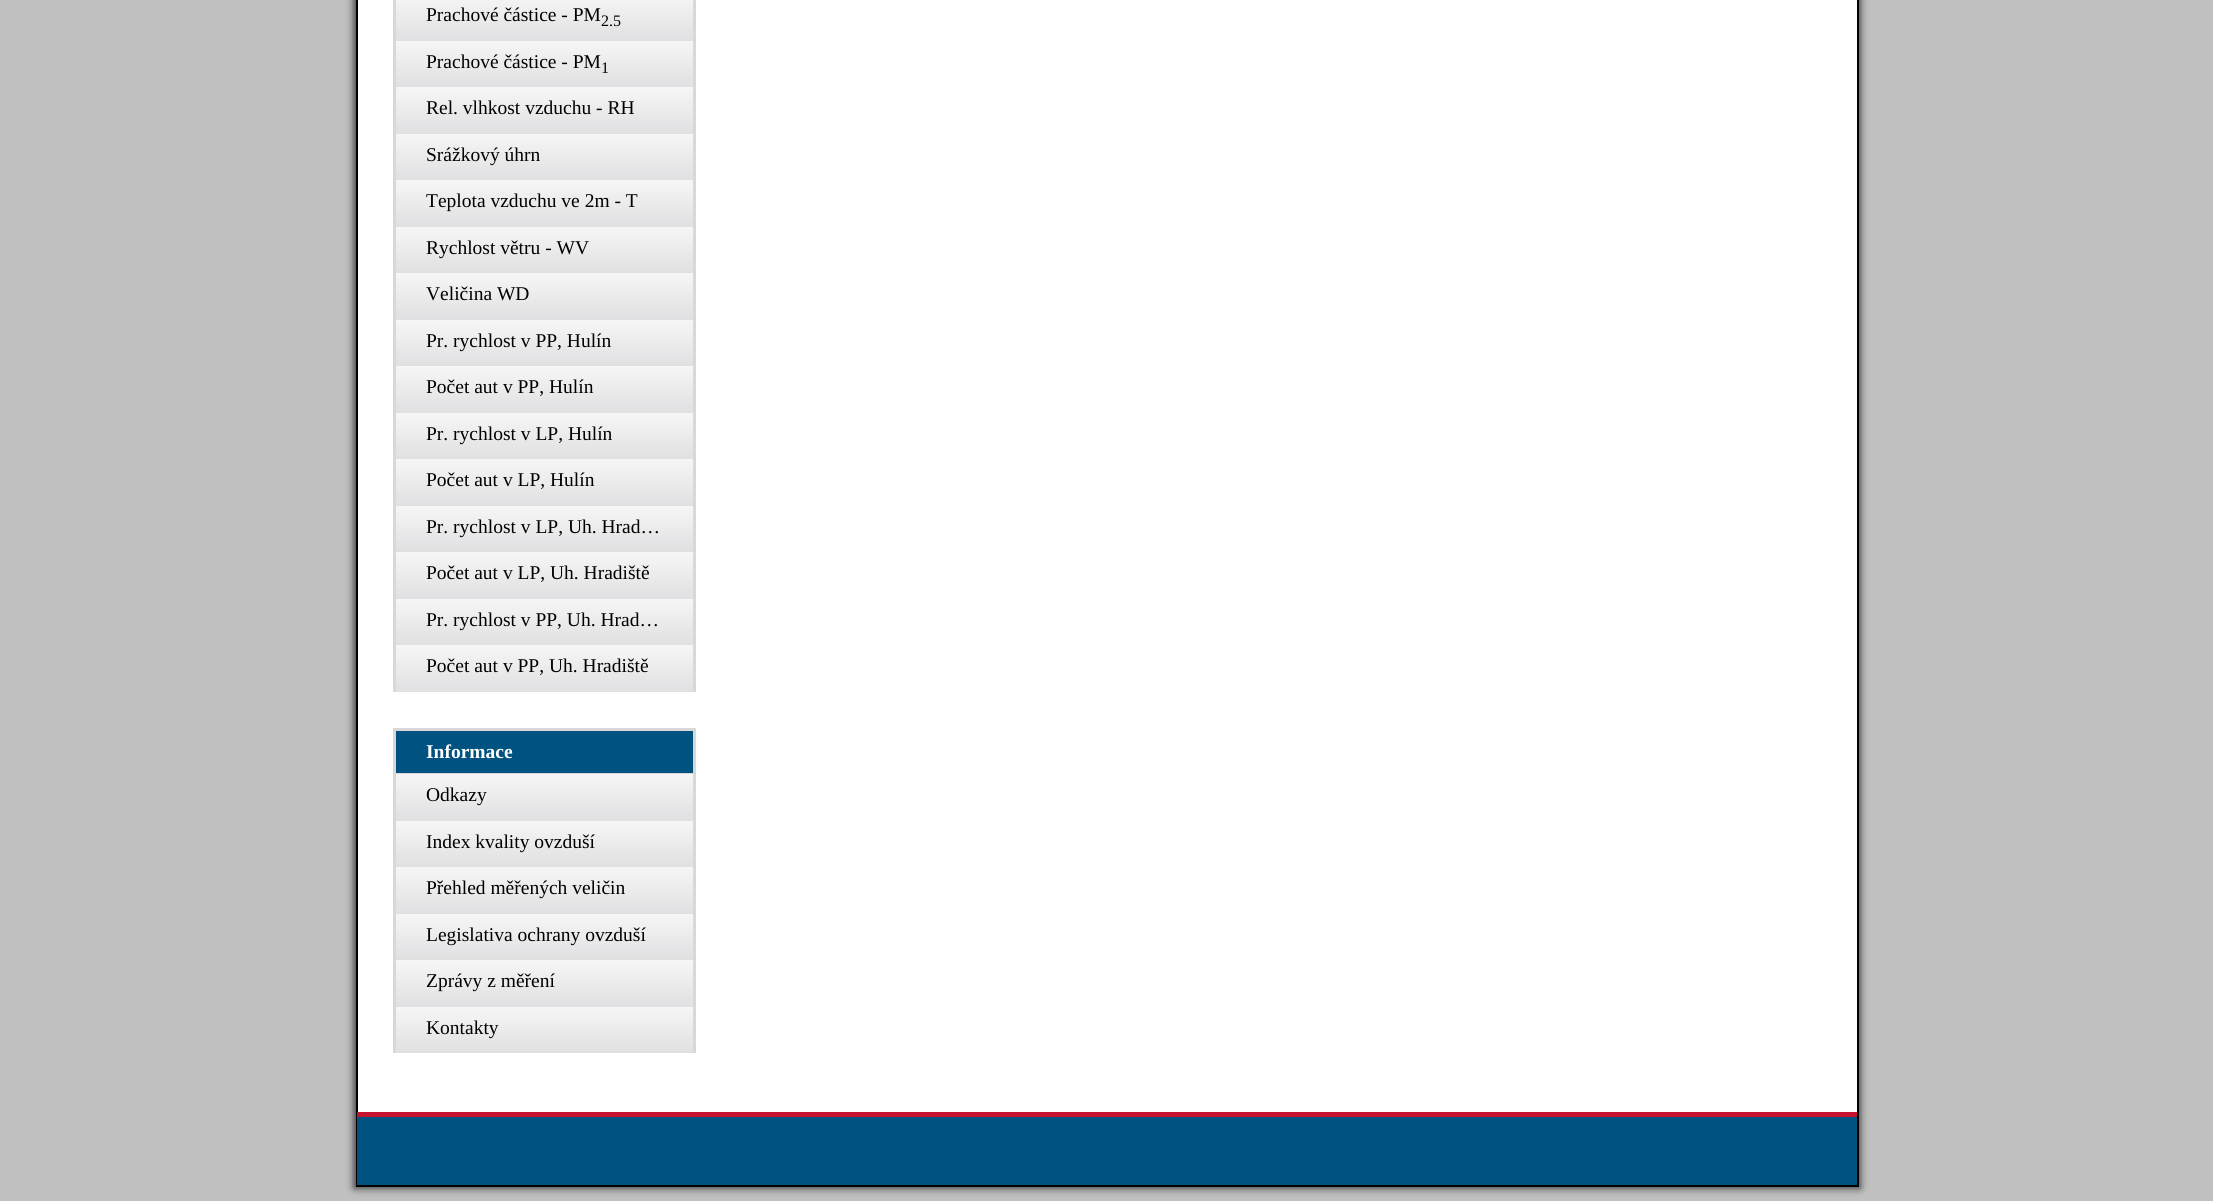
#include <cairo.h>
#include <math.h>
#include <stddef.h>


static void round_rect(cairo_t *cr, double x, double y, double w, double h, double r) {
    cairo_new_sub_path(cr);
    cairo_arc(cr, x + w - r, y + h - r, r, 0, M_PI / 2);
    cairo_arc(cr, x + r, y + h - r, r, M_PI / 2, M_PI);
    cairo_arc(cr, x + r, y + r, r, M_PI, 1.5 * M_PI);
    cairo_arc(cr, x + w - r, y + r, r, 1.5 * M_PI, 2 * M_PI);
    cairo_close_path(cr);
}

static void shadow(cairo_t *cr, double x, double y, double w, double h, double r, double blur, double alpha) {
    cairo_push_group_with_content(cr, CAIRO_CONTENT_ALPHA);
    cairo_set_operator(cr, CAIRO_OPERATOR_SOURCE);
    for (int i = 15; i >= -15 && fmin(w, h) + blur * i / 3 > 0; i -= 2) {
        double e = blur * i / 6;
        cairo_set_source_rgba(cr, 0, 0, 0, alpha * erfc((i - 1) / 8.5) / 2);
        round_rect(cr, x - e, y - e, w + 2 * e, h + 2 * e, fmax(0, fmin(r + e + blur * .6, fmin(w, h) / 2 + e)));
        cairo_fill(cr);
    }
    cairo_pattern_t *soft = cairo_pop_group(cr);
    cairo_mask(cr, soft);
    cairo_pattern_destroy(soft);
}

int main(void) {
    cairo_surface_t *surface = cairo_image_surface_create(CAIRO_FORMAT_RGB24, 2213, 1201);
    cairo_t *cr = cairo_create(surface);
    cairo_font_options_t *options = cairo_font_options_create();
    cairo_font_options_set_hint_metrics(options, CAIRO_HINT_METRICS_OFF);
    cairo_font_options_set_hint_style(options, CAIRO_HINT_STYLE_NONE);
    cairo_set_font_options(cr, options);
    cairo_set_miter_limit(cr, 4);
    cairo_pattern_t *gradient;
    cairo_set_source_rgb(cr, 0.753, 0.753, 0.753);
    cairo_paint(cr);
    cairo_set_source_rgb(cr, 0, 0, 0);
    shadow(cr, 354, -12, 1506, 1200, 0, 4, 0.75);
    cairo_set_source_rgb(cr, 1, 1, 1);
    cairo_rectangle(cr, 358, 0, 1499, 1112);
    cairo_fill(cr);
    cairo_rectangle(cr, 357, -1, 1501, 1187);
    cairo_set_source_rgb(cr, 0, 0, 0);
    cairo_stroke(cr);
    cairo_set_source_rgb(cr, 0.847, 0.847, 0.847);
    cairo_rectangle(cr, 693, 0, 3, 692);
    cairo_fill(cr);
    cairo_rectangle(cr, 393, 0, 3, 692);
    cairo_fill(cr);
    gradient = cairo_pattern_create_linear(545, -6, 545, 41);
    cairo_pattern_add_color_stop_rgba(gradient, 0, 0.965, 0.965, 0.965, 1);
    cairo_pattern_add_color_stop_rgba(gradient, 1, 0.878, 0.878, 0.886, 1);
    cairo_set_source(cr, gradient);
    cairo_pattern_destroy(gradient);
    cairo_rectangle(cr, 396, 0, 297, 41);
    cairo_fill(cr);
    cairo_select_font_face(cr, "Liberation Serif", CAIRO_FONT_SLANT_NORMAL, CAIRO_FONT_WEIGHT_NORMAL);
    cairo_set_font_size(cr, 19.5);
    cairo_set_source_rgb(cr, 0, 0, 0);
    cairo_move_to(cr, 426, 21);
    cairo_show_text(cr, "Prachové částice - PM");
    cairo_set_font_size(cr, 16);
    cairo_move_to(cr, 601, 26);
    cairo_show_text(cr, "2.5");
    gradient = cairo_pattern_create_linear(545, 40, 545, 87);
    cairo_pattern_add_color_stop_rgba(gradient, 0, 0.965, 0.965, 0.965, 1);
    cairo_pattern_add_color_stop_rgba(gradient, 1, 0.878, 0.878, 0.886, 1);
    cairo_set_source(cr, gradient);
    cairo_pattern_destroy(gradient);
    cairo_rectangle(cr, 396, 41, 297, 46);
    cairo_fill(cr);
    cairo_set_font_size(cr, 19.5);
    cairo_set_source_rgb(cr, 0, 0, 0);
    cairo_move_to(cr, 426, 68);
    cairo_show_text(cr, "Prachové částice - PM");
    cairo_set_font_size(cr, 16);
    cairo_move_to(cr, 601, 73);
    cairo_show_text(cr, "1");
    gradient = cairo_pattern_create_linear(545, 87, 545, 134);
    cairo_pattern_add_color_stop_rgba(gradient, 0, 0.965, 0.965, 0.965, 1);
    cairo_pattern_add_color_stop_rgba(gradient, 1, 0.878, 0.878, 0.886, 1);
    cairo_set_source(cr, gradient);
    cairo_pattern_destroy(gradient);
    cairo_rectangle(cr, 396, 87, 297, 47);
    cairo_fill(cr);
    cairo_set_font_size(cr, 19.5);
    cairo_set_source_rgb(cr, 0, 0, 0);
    cairo_move_to(cr, 426, 114);
    cairo_show_text(cr, "Rel. vlhkost vzduchu - RH");
    gradient = cairo_pattern_create_linear(545, 133, 545, 180);
    cairo_pattern_add_color_stop_rgba(gradient, 0, 0.965, 0.965, 0.965, 1);
    cairo_pattern_add_color_stop_rgba(gradient, 1, 0.878, 0.878, 0.886, 1);
    cairo_set_source(cr, gradient);
    cairo_pattern_destroy(gradient);
    cairo_rectangle(cr, 396, 134, 297, 46);
    cairo_fill(cr);
    cairo_set_source_rgb(cr, 0, 0, 0);
    cairo_move_to(cr, 426, 161);
    cairo_show_text(cr, "Srážkový úhrn");
    gradient = cairo_pattern_create_linear(545, 180, 545, 227);
    cairo_pattern_add_color_stop_rgba(gradient, 0, 0.965, 0.965, 0.965, 1);
    cairo_pattern_add_color_stop_rgba(gradient, 1, 0.878, 0.878, 0.886, 1);
    cairo_set_source(cr, gradient);
    cairo_pattern_destroy(gradient);
    cairo_rectangle(cr, 396, 180, 297, 47);
    cairo_fill(cr);
    cairo_set_source_rgb(cr, 0, 0, 0);
    cairo_move_to(cr, 426, 207);
    cairo_show_text(cr, "Teplota vzduchu ve 2m - T");
    gradient = cairo_pattern_create_linear(545, 227, 545, 273);
    cairo_pattern_add_color_stop_rgba(gradient, 0, 0.965, 0.965, 0.965, 1);
    cairo_pattern_add_color_stop_rgba(gradient, 1, 0.878, 0.878, 0.886, 1);
    cairo_set_source(cr, gradient);
    cairo_pattern_destroy(gradient);
    cairo_rectangle(cr, 396, 227, 297, 46);
    cairo_fill(cr);
    cairo_set_source_rgb(cr, 0, 0, 0);
    cairo_move_to(cr, 426, 254);
    cairo_show_text(cr, "Rychlost větru - WV");
    gradient = cairo_pattern_create_linear(545, 273, 545, 320);
    cairo_pattern_add_color_stop_rgba(gradient, 0, 0.965, 0.965, 0.965, 1);
    cairo_pattern_add_color_stop_rgba(gradient, 1, 0.878, 0.878, 0.886, 1);
    cairo_set_source(cr, gradient);
    cairo_pattern_destroy(gradient);
    cairo_rectangle(cr, 396, 273, 297, 47);
    cairo_fill(cr);
    cairo_set_source_rgb(cr, 0, 0, 0);
    cairo_move_to(cr, 426, 300);
    cairo_show_text(cr, "Veličina WD");
    gradient = cairo_pattern_create_linear(545, 320, 545, 366);
    cairo_pattern_add_color_stop_rgba(gradient, 0, 0.965, 0.965, 0.965, 1);
    cairo_pattern_add_color_stop_rgba(gradient, 1, 0.878, 0.878, 0.886, 1);
    cairo_set_source(cr, gradient);
    cairo_pattern_destroy(gradient);
    cairo_rectangle(cr, 396, 320, 297, 46);
    cairo_fill(cr);
    cairo_set_source_rgb(cr, 0, 0, 0);
    cairo_move_to(cr, 426, 347);
    cairo_show_text(cr, "Pr. rychlost v PP, Hulín");
    gradient = cairo_pattern_create_linear(545, 366, 545, 413);
    cairo_pattern_add_color_stop_rgba(gradient, 0, 0.965, 0.965, 0.965, 1);
    cairo_pattern_add_color_stop_rgba(gradient, 1, 0.878, 0.878, 0.886, 1);
    cairo_set_source(cr, gradient);
    cairo_pattern_destroy(gradient);
    cairo_rectangle(cr, 396, 366, 297, 47);
    cairo_fill(cr);
    cairo_set_source_rgb(cr, 0, 0, 0);
    cairo_move_to(cr, 426, 393);
    cairo_show_text(cr, "Počet aut v PP, Hulín");
    gradient = cairo_pattern_create_linear(545, 413, 545, 459);
    cairo_pattern_add_color_stop_rgba(gradient, 0, 0.965, 0.965, 0.965, 1);
    cairo_pattern_add_color_stop_rgba(gradient, 1, 0.878, 0.878, 0.886, 1);
    cairo_set_source(cr, gradient);
    cairo_pattern_destroy(gradient);
    cairo_rectangle(cr, 396, 413, 297, 46);
    cairo_fill(cr);
    cairo_set_source_rgb(cr, 0, 0, 0);
    cairo_move_to(cr, 426, 440);
    cairo_show_text(cr, "Pr. rychlost v LP, Hulín");
    gradient = cairo_pattern_create_linear(545, 459, 545, 506);
    cairo_pattern_add_color_stop_rgba(gradient, 0, 0.965, 0.965, 0.965, 1);
    cairo_pattern_add_color_stop_rgba(gradient, 1, 0.878, 0.878, 0.886, 1);
    cairo_set_source(cr, gradient);
    cairo_pattern_destroy(gradient);
    cairo_rectangle(cr, 396, 459, 297, 47);
    cairo_fill(cr);
    cairo_set_source_rgb(cr, 0, 0, 0);
    cairo_move_to(cr, 426, 486);
    cairo_show_text(cr, "Počet aut v LP, Hulín");
    gradient = cairo_pattern_create_linear(545, 506, 545, 552);
    cairo_pattern_add_color_stop_rgba(gradient, 0, 0.965, 0.965, 0.965, 1);
    cairo_pattern_add_color_stop_rgba(gradient, 1, 0.878, 0.878, 0.886, 1);
    cairo_set_source(cr, gradient);
    cairo_pattern_destroy(gradient);
    cairo_rectangle(cr, 396, 506, 297, 46);
    cairo_fill(cr);
    cairo_set_source_rgb(cr, 0, 0, 0);
    cairo_move_to(cr, 426, 533);
    cairo_show_text(cr, "Pr. rychlost v LP, Uh. Hrad…");
    gradient = cairo_pattern_create_linear(545, 552, 545, 599);
    cairo_pattern_add_color_stop_rgba(gradient, 0, 0.965, 0.965, 0.965, 1);
    cairo_pattern_add_color_stop_rgba(gradient, 1, 0.878, 0.878, 0.886, 1);
    cairo_set_source(cr, gradient);
    cairo_pattern_destroy(gradient);
    cairo_rectangle(cr, 396, 552, 297, 47);
    cairo_fill(cr);
    cairo_set_source_rgb(cr, 0, 0, 0);
    cairo_move_to(cr, 426, 579);
    cairo_show_text(cr, "Počet aut v LP, Uh. Hradiště");
    gradient = cairo_pattern_create_linear(545, 599, 545, 645);
    cairo_pattern_add_color_stop_rgba(gradient, 0, 0.965, 0.965, 0.965, 1);
    cairo_pattern_add_color_stop_rgba(gradient, 1, 0.878, 0.878, 0.886, 1);
    cairo_set_source(cr, gradient);
    cairo_pattern_destroy(gradient);
    cairo_rectangle(cr, 396, 599, 297, 46);
    cairo_fill(cr);
    cairo_set_source_rgb(cr, 0, 0, 0);
    cairo_move_to(cr, 426, 626);
    cairo_show_text(cr, "Pr. rychlost v PP, Uh. Hrad…");
    gradient = cairo_pattern_create_linear(545, 645, 545, 692);
    cairo_pattern_add_color_stop_rgba(gradient, 0, 0.965, 0.965, 0.965, 1);
    cairo_pattern_add_color_stop_rgba(gradient, 1, 0.878, 0.878, 0.886, 1);
    cairo_set_source(cr, gradient);
    cairo_pattern_destroy(gradient);
    cairo_rectangle(cr, 396, 645, 297, 47);
    cairo_fill(cr);
    cairo_set_source_rgb(cr, 0, 0, 0);
    cairo_move_to(cr, 426, 672);
    cairo_show_text(cr, "Počet aut v PP, Uh. Hradiště");
    cairo_set_source_rgb(cr, 0.847, 0.847, 0.847);
    cairo_rectangle(cr, 393, 728, 303, 3);
    cairo_fill(cr);
    cairo_rectangle(cr, 693, 728, 3, 325);
    cairo_fill(cr);
    cairo_rectangle(cr, 393, 728, 3, 325);
    cairo_fill(cr);
    cairo_set_source_rgb(cr, 0, 0.325, 0.502);
    cairo_rectangle(cr, 396, 731, 297, 42);
    cairo_fill(cr);
    cairo_set_source_rgb(cr, 0.847, 0.847, 0.847);
    cairo_rectangle(cr, 396, 773, 297, 1);
    cairo_fill(cr);
    cairo_select_font_face(cr, "Liberation Serif", CAIRO_FONT_SLANT_NORMAL, CAIRO_FONT_WEIGHT_BOLD);
    cairo_set_source_rgb(cr, 1, 1, 1);
    cairo_move_to(cr, 426, 758);
    cairo_show_text(cr, "Informace");
    gradient = cairo_pattern_create_linear(545, 774, 545, 821);
    cairo_pattern_add_color_stop_rgba(gradient, 0, 0.965, 0.965, 0.965, 1);
    cairo_pattern_add_color_stop_rgba(gradient, 1, 0.878, 0.878, 0.886, 1);
    cairo_set_source(cr, gradient);
    cairo_pattern_destroy(gradient);
    cairo_rectangle(cr, 396, 774, 297, 47);
    cairo_fill(cr);
    cairo_select_font_face(cr, "Liberation Serif", CAIRO_FONT_SLANT_NORMAL, CAIRO_FONT_WEIGHT_NORMAL);
    cairo_set_source_rgb(cr, 0, 0, 0);
    cairo_move_to(cr, 426, 801);
    cairo_show_text(cr, "Odkazy");
    gradient = cairo_pattern_create_linear(545, 821, 545, 867);
    cairo_pattern_add_color_stop_rgba(gradient, 0, 0.965, 0.965, 0.965, 1);
    cairo_pattern_add_color_stop_rgba(gradient, 1, 0.878, 0.878, 0.886, 1);
    cairo_set_source(cr, gradient);
    cairo_pattern_destroy(gradient);
    cairo_rectangle(cr, 396, 821, 297, 46);
    cairo_fill(cr);
    cairo_set_source_rgb(cr, 0, 0, 0);
    cairo_move_to(cr, 426, 848);
    cairo_show_text(cr, "Index kvality ovzduší");
    gradient = cairo_pattern_create_linear(545, 867, 545, 914);
    cairo_pattern_add_color_stop_rgba(gradient, 0, 0.965, 0.965, 0.965, 1);
    cairo_pattern_add_color_stop_rgba(gradient, 1, 0.878, 0.878, 0.886, 1);
    cairo_set_source(cr, gradient);
    cairo_pattern_destroy(gradient);
    cairo_rectangle(cr, 396, 867, 297, 47);
    cairo_fill(cr);
    cairo_set_source_rgb(cr, 0, 0, 0);
    cairo_move_to(cr, 426, 894);
    cairo_show_text(cr, "Přehled měřených veličin");
    gradient = cairo_pattern_create_linear(545, 914, 545, 960);
    cairo_pattern_add_color_stop_rgba(gradient, 0, 0.965, 0.965, 0.965, 1);
    cairo_pattern_add_color_stop_rgba(gradient, 1, 0.878, 0.878, 0.886, 1);
    cairo_set_source(cr, gradient);
    cairo_pattern_destroy(gradient);
    cairo_rectangle(cr, 396, 914, 297, 46);
    cairo_fill(cr);
    cairo_set_source_rgb(cr, 0, 0, 0);
    cairo_move_to(cr, 426, 941);
    cairo_show_text(cr, "Legislativa ochrany ovzduší");
    gradient = cairo_pattern_create_linear(545, 960, 545, 1007);
    cairo_pattern_add_color_stop_rgba(gradient, 0, 0.965, 0.965, 0.965, 1);
    cairo_pattern_add_color_stop_rgba(gradient, 1, 0.878, 0.878, 0.886, 1);
    cairo_set_source(cr, gradient);
    cairo_pattern_destroy(gradient);
    cairo_rectangle(cr, 396, 960, 297, 47);
    cairo_fill(cr);
    cairo_set_source_rgb(cr, 0, 0, 0);
    cairo_move_to(cr, 426, 987);
    cairo_show_text(cr, "Zprávy z měření");
    gradient = cairo_pattern_create_linear(545, 1007, 545, 1053);
    cairo_pattern_add_color_stop_rgba(gradient, 0, 0.965, 0.965, 0.965, 1);
    cairo_pattern_add_color_stop_rgba(gradient, 1, 0.878, 0.878, 0.886, 1);
    cairo_set_source(cr, gradient);
    cairo_pattern_destroy(gradient);
    cairo_rectangle(cr, 396, 1007, 297, 46);
    cairo_fill(cr);
    cairo_set_source_rgb(cr, 0, 0, 0);
    cairo_move_to(cr, 426, 1034);
    cairo_show_text(cr, "Kontakty");
    cairo_set_source_rgb(cr, 0, 0.325, 0.502);
    cairo_rectangle(cr, 357, 1117, 1500, 68);
    cairo_fill(cr);
    cairo_set_source_rgb(cr, 0.769, 0.071, 0.188);
    cairo_rectangle(cr, 357, 1112, 1500, 5);
    cairo_fill(cr);
    cairo_surface_write_to_png(surface, "page.png");
    cairo_font_options_destroy(options);
    cairo_destroy(cr);
    cairo_surface_destroy(surface);
    return 0;
}
